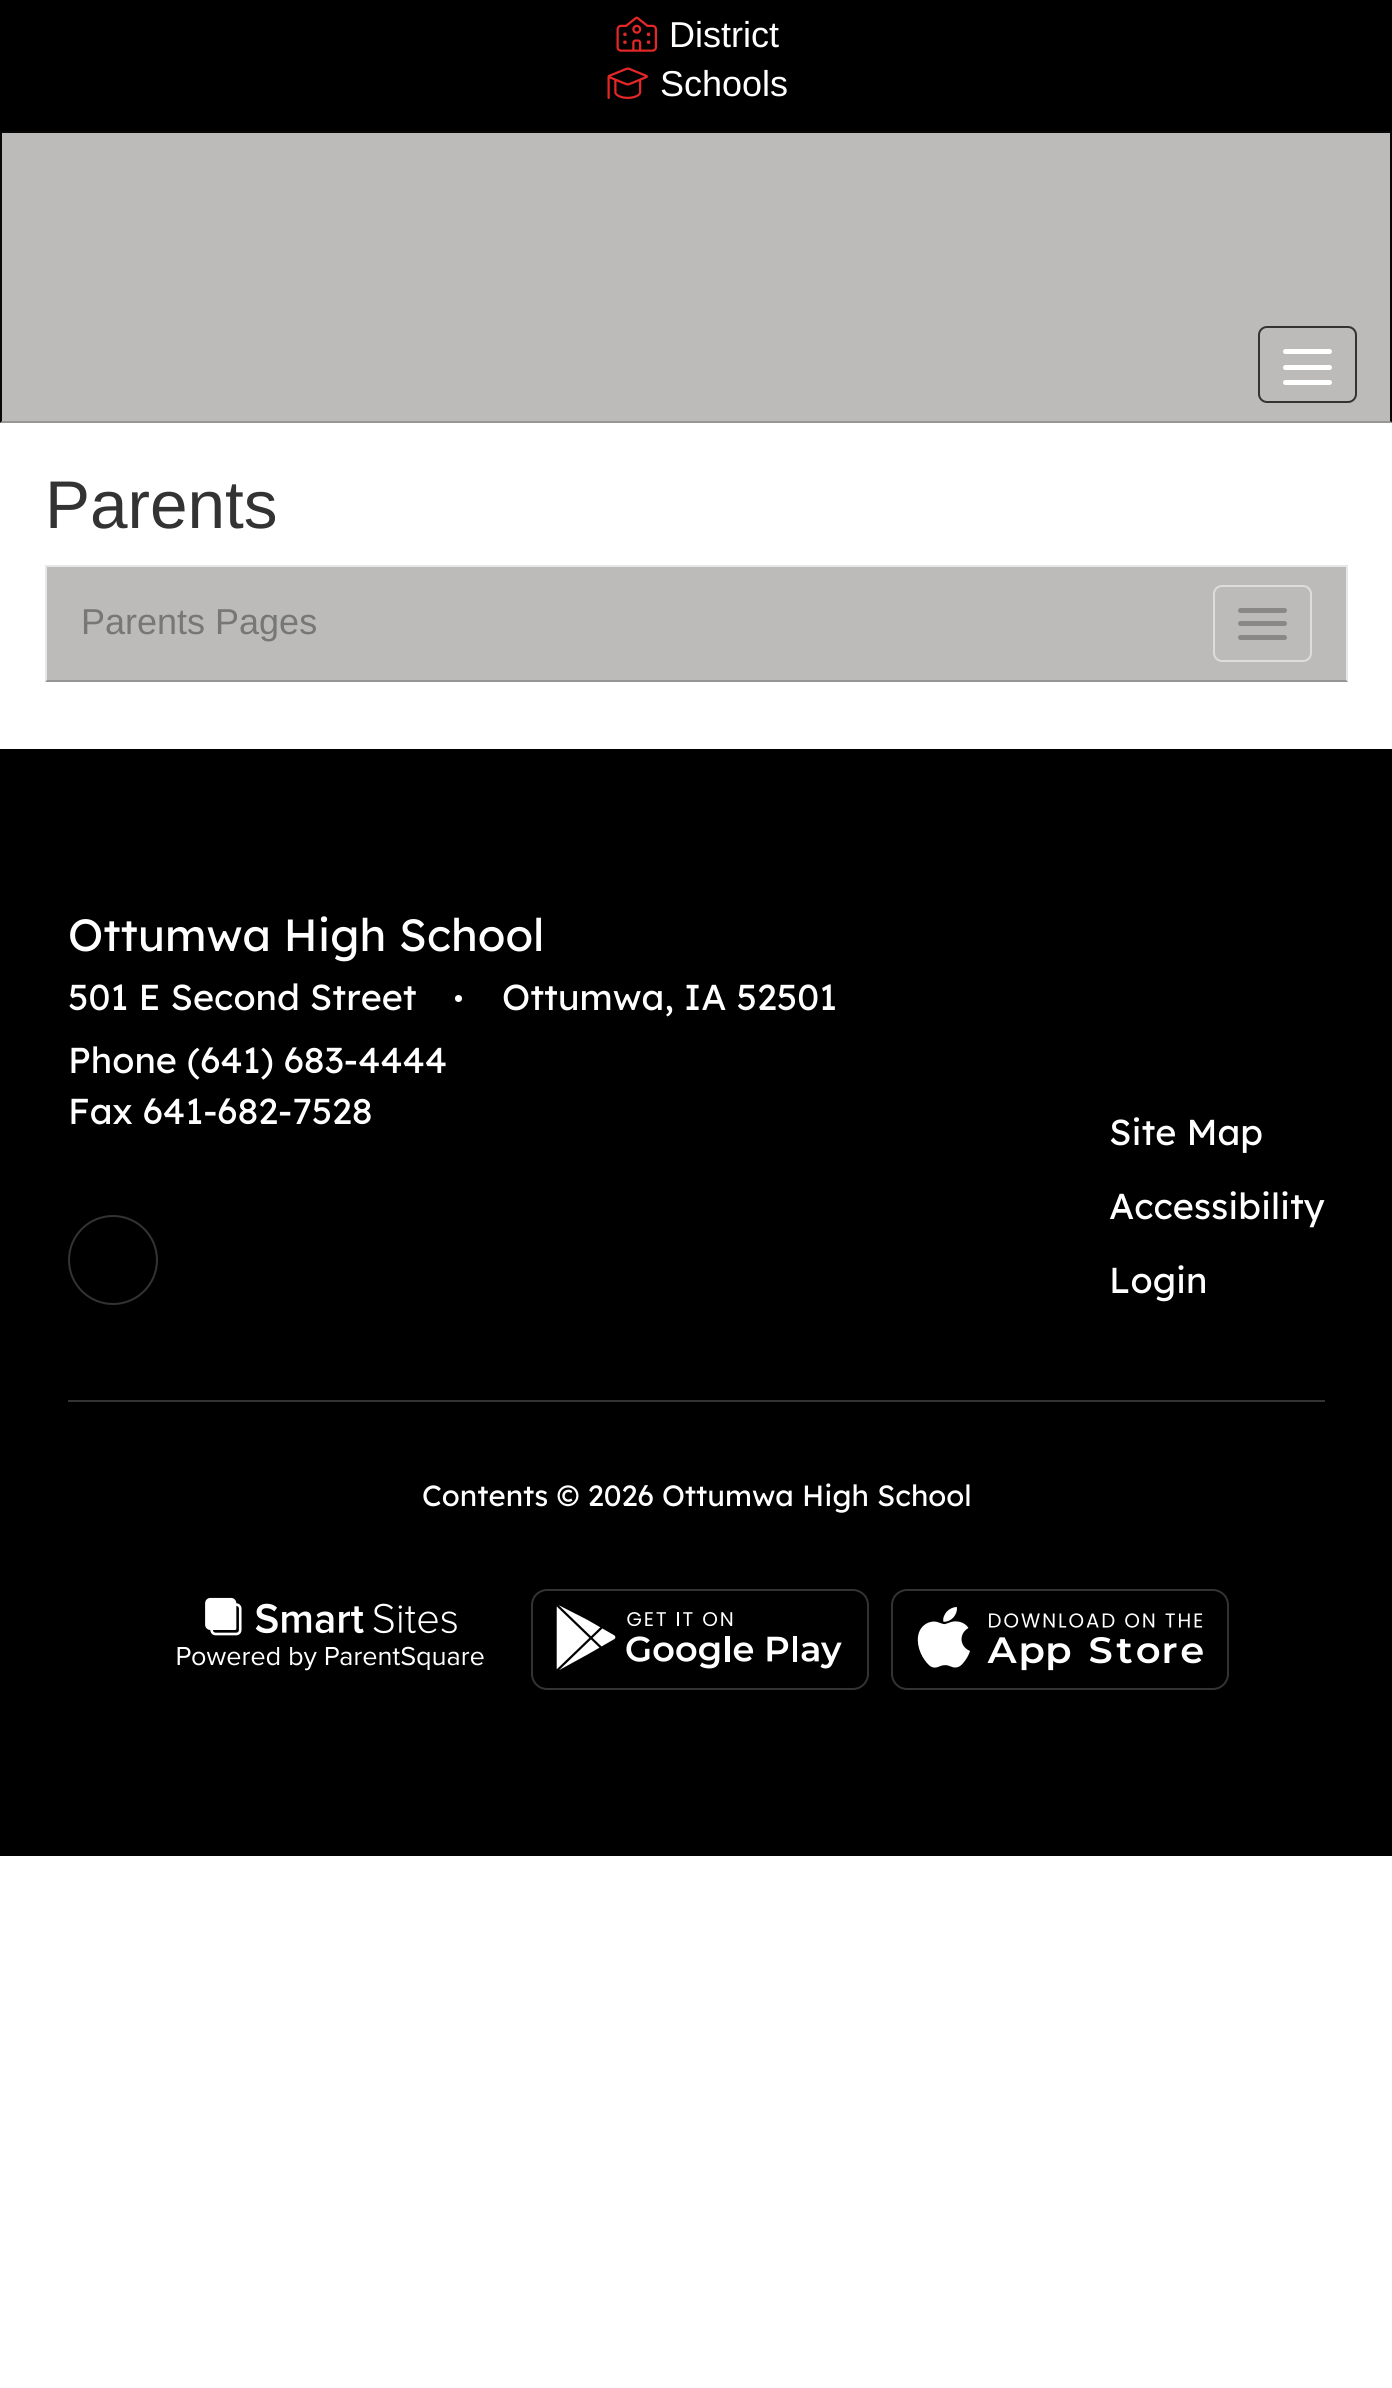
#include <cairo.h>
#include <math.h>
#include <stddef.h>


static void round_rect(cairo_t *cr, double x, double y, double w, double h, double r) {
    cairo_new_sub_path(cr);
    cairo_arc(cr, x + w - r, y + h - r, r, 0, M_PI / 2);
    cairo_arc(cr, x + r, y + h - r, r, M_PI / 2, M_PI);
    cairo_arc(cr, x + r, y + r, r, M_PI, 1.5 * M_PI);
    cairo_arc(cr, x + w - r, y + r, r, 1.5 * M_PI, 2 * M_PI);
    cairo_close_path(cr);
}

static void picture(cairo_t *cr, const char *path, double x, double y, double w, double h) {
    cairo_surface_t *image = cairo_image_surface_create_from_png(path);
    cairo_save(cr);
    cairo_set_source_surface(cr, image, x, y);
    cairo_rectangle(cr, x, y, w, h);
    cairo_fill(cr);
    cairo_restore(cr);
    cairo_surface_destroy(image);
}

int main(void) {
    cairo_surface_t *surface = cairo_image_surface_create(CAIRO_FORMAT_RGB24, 1392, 2388);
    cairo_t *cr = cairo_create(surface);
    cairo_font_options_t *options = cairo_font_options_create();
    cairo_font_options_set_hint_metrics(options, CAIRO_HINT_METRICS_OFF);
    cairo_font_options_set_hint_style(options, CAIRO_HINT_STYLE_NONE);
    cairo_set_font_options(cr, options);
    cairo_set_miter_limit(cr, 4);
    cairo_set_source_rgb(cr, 1, 1, 1);
    cairo_paint(cr);
    cairo_set_source_rgb(cr, 0, 0, 0);
    cairo_rectangle(cr, 0, 0, 1392, 131);
    cairo_fill(cr);
    picture(cr, "img1.png", 616, 16, 41, 36);
    cairo_select_font_face(cr, "Liberation Sans", CAIRO_FONT_SLANT_NORMAL, CAIRO_FONT_WEIGHT_NORMAL);
    cairo_set_font_size(cr, 36);
    cairo_set_source_rgb(cr, 1, 1, 1);
    cairo_move_to(cr, 669, 47);
    cairo_show_text(cr, "District");
    picture(cr, "img2.png", 607, 67, 41, 32);
    cairo_move_to(cr, 660, 96);
    cairo_show_text(cr, "Schools");
    cairo_set_source_rgb(cr, 0.737, 0.733, 0.729);
    cairo_rectangle(cr, 0, 133, 1392, 290);
    cairo_fill(cr);
    cairo_set_source_rgb(cr, 0.031, 0.031, 0.031);
    cairo_rectangle(cr, 0, 131, 1392, 2);
    cairo_fill(cr);
    cairo_new_path(cr);
    cairo_move_to(cr, 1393, 130);
    cairo_line_to(cr, 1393, 423);
    cairo_line_to(cr, 1390, 421);
    cairo_line_to(cr, 1390, 133);
    cairo_close_path(cr);
    cairo_fill(cr);
    cairo_set_source_rgba(cr, 0, 0, 0, 0.2);
    cairo_new_path(cr);
    cairo_move_to(cr, 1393, 423);
    cairo_line_to(cr, 0, 423);
    cairo_line_to(cr, 2, 421);
    cairo_line_to(cr, 1390, 421);
    cairo_close_path(cr);
    cairo_fill(cr);
    cairo_set_source_rgb(cr, 0.031, 0.031, 0.031);
    cairo_new_path(cr);
    cairo_move_to(cr, 0, 423);
    cairo_line_to(cr, 0, 130);
    cairo_line_to(cr, 2, 133);
    cairo_line_to(cr, 2, 421);
    cairo_close_path(cr);
    cairo_fill(cr);
    round_rect(cr, 1259, 327, 97, 75, 8);
    cairo_set_source_rgb(cr, 0.2, 0.2, 0.2);
    cairo_stroke(cr);
    cairo_set_source_rgb(cr, 1, 1, 1);
    round_rect(cr, 1283, 349, 49, 5, 2.5);
    cairo_fill(cr);
    round_rect(cr, 1283, 365, 49, 5, 2.5);
    cairo_fill(cr);
    round_rect(cr, 1283, 380, 49, 5, 2.5);
    cairo_fill(cr);
    cairo_set_font_size(cr, 67.5);
    cairo_set_source_rgb(cr, 0.2, 0.2, 0.2);
    cairo_move_to(cr, 45, 528);
    cairo_show_text(cr, "Parents");
    cairo_set_source_rgb(cr, 0.737, 0.733, 0.729);
    cairo_rectangle(cr, 45, 567, 1303, 115);
    cairo_fill(cr);
    cairo_set_source_rgb(cr, 0.906, 0.906, 0.906);
    cairo_rectangle(cr, 45, 565, 1303, 2);
    cairo_fill(cr);
    cairo_new_path(cr);
    cairo_move_to(cr, 1348, 565);
    cairo_line_to(cr, 1348, 682);
    cairo_line_to(cr, 1346, 680);
    cairo_line_to(cr, 1346, 567);
    cairo_close_path(cr);
    cairo_fill(cr);
    cairo_set_source_rgba(cr, 0, 0, 0, 0.2);
    cairo_new_path(cr);
    cairo_move_to(cr, 1348, 682);
    cairo_line_to(cr, 45, 682);
    cairo_line_to(cr, 47, 680);
    cairo_line_to(cr, 1346, 680);
    cairo_close_path(cr);
    cairo_fill(cr);
    cairo_set_source_rgb(cr, 0.906, 0.906, 0.906);
    cairo_new_path(cr);
    cairo_move_to(cr, 45, 682);
    cairo_line_to(cr, 45, 565);
    cairo_line_to(cr, 47, 567);
    cairo_line_to(cr, 47, 680);
    cairo_close_path(cr);
    cairo_fill(cr);
    cairo_set_font_size(cr, 36);
    cairo_set_source_rgb(cr, 0.467, 0.467, 0.467);
    cairo_move_to(cr, 81, 634);
    cairo_show_text(cr, "Parents Pages");
    round_rect(cr, 1214, 586, 97, 75, 8);
    cairo_set_source_rgb(cr, 0.867, 0.867, 0.867);
    cairo_stroke(cr);
    cairo_set_source_rgb(cr, 0.533, 0.533, 0.533);
    round_rect(cr, 1238, 608, 49, 5, 2.5);
    cairo_fill(cr);
    round_rect(cr, 1238, 621, 49, 5, 2.5);
    cairo_fill(cr);
    round_rect(cr, 1238, 635, 49, 5, 2.5);
    cairo_fill(cr);
    cairo_set_source_rgb(cr, 0, 0, 0);
    cairo_rectangle(cr, 0, 749, 1392, 1107);
    cairo_fill(cr);
    cairo_select_font_face(cr, "Lexend", CAIRO_FONT_SLANT_NORMAL, CAIRO_FONT_WEIGHT_NORMAL);
    cairo_set_font_size(cr, 45);
    cairo_set_source_rgb(cr, 1, 1, 1);
    cairo_move_to(cr, 68, 951);
    cairo_show_text(cr, "Ottumwa High School");
    cairo_set_font_size(cr, 36);
    cairo_move_to(cr, 68, 1010);
    cairo_show_text(cr, "501 E Second Street");
    cairo_new_path(cr);
    cairo_arc(cr, 458.5, 998.5, 3.5, 0, 2 * M_PI);
    cairo_fill(cr);
    cairo_move_to(cr, 502, 1010);
    cairo_show_text(cr, "Ottumwa, IA 52501");
    cairo_move_to(cr, 68, 1073);
    cairo_show_text(cr, "Phone (641) 683-4444");
    cairo_move_to(cr, 68, 1124);
    cairo_show_text(cr, "Fax 641-682-7528");
    cairo_new_path(cr);
    cairo_arc(cr, 113, 1260, 44, 0, 2 * M_PI);
    cairo_set_source_rgb(cr, 0.2, 0.2, 0.2);
    cairo_stroke(cr);
    cairo_set_source_rgb(cr, 1, 1, 1);
    cairo_move_to(cr, 1109, 1145);
    cairo_show_text(cr, "Site Map");
    cairo_move_to(cr, 1109, 1219);
    cairo_show_text(cr, "Accessibility");
    cairo_move_to(cr, 1109, 1293);
    cairo_show_text(cr, "Login");
    cairo_set_source_rgb(cr, 0.2, 0.2, 0.2);
    cairo_rectangle(cr, 68, 1400, 1257, 2);
    cairo_fill(cr);
    cairo_set_font_size(cr, 29.25);
    cairo_set_source_rgb(cr, 1, 1, 1);
    cairo_move_to(cr, 422, 1506);
    cairo_show_text(cr, "Contents © 2026 Ottumwa High School");
    picture(cr, "img3.png", 177, 1597, 307, 74);
    round_rect(cr, 532, 1590, 336, 99, 15);
    cairo_set_source_rgb(cr, 0.2, 0.2, 0.2);
    cairo_stroke(cr);
    picture(cr, "img4.png", 556, 1605, 286, 65);
    round_rect(cr, 892, 1590, 336, 99, 15);
    cairo_stroke(cr);
    picture(cr, "img5.png", 917, 1607, 286, 64);
    cairo_surface_write_to_png(surface, "page.png");
    cairo_font_options_destroy(options);
    cairo_destroy(cr);
    cairo_surface_destroy(surface);
    return 0;
}
